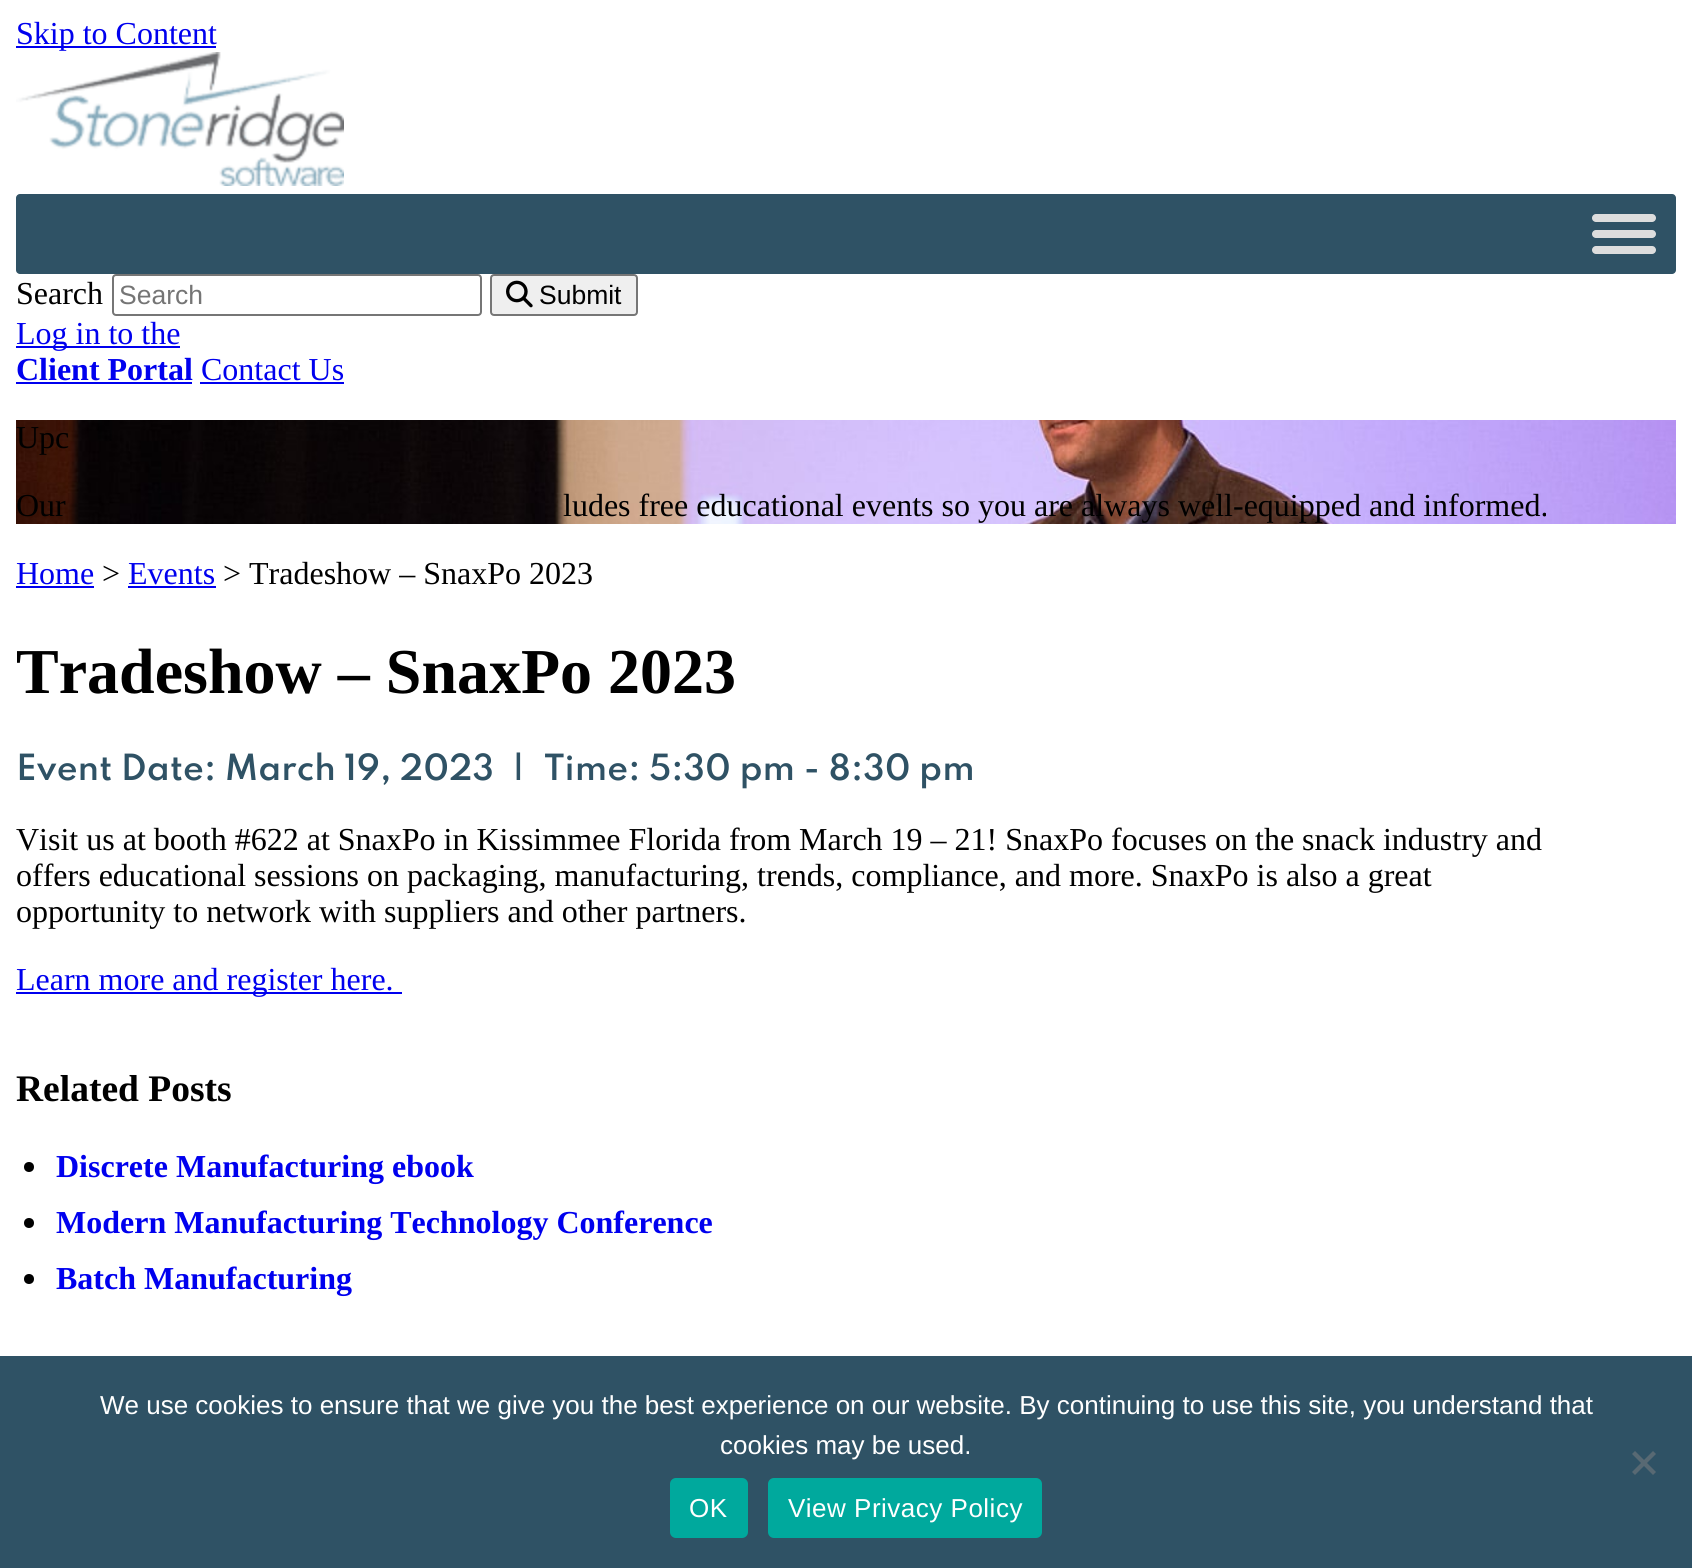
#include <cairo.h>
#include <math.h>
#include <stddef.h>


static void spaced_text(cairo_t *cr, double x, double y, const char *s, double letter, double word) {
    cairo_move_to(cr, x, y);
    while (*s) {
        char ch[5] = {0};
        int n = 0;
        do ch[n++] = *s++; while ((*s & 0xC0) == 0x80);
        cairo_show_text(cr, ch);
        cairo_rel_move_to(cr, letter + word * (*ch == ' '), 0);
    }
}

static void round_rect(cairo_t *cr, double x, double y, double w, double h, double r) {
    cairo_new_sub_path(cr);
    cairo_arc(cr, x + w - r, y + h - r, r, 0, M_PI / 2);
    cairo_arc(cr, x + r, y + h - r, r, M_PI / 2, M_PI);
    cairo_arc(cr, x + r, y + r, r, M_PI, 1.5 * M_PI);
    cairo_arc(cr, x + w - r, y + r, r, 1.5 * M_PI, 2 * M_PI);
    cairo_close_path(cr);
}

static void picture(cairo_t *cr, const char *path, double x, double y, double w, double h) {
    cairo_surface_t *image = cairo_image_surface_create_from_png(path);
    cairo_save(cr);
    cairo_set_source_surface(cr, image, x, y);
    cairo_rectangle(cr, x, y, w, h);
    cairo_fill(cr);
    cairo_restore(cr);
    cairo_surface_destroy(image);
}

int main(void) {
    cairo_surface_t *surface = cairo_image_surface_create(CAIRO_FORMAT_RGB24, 1692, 1568);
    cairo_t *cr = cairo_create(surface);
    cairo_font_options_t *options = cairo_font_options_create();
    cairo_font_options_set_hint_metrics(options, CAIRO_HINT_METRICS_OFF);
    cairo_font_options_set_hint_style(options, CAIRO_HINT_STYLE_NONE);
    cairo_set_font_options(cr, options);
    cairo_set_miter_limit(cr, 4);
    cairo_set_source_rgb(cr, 1, 1, 1);
    cairo_paint(cr);
    cairo_set_source_rgb(cr, 0, 0, 0.933);
    cairo_rectangle(cr, 16, 46, 200, 2);
    cairo_fill(cr);
    cairo_select_font_face(cr, "Liberation Serif", CAIRO_FONT_SLANT_NORMAL, CAIRO_FONT_WEIGHT_NORMAL);
    cairo_set_font_size(cr, 32);
    cairo_move_to(cr, 16, 44);
    cairo_show_text(cr, "Skip to Content");
    picture(cr, "img1.png", 16, 52, 328, 134);
    cairo_set_source_rgb(cr, 0.184, 0.322, 0.396);
    round_rect(cr, 16, 194, 1660, 80, 4);
    cairo_fill(cr);
    cairo_set_source_rgb(cr, 0.867, 0.867, 0.867);
    round_rect(cr, 1592, 214, 64, 8, 4);
    cairo_fill(cr);
    round_rect(cr, 1592, 230, 64, 8, 4);
    cairo_fill(cr);
    round_rect(cr, 1592, 246, 64, 8, 4);
    cairo_fill(cr);
    cairo_set_source_rgb(cr, 0, 0, 0);
    cairo_move_to(cr, 16, 304);
    cairo_show_text(cr, "Search");
    round_rect(cr, 113, 275, 368, 40, 3);
    cairo_set_source_rgb(cr, 0.463, 0.463, 0.463);
    cairo_stroke(cr);
    cairo_select_font_face(cr, "Liberation Sans", CAIRO_FONT_SLANT_NORMAL, CAIRO_FONT_WEIGHT_NORMAL);
    cairo_set_font_size(cr, 26.5);
    cairo_set_source_rgb(cr, 0.459, 0.459, 0.459);
    cairo_move_to(cr, 119, 304);
    cairo_show_text(cr, "Search");
    cairo_set_source_rgb(cr, 0.937, 0.937, 0.937);
    round_rect(cr, 491, 275, 146, 40, 3);
    cairo_fill_preserve(cr);
    cairo_set_source_rgb(cr, 0.463, 0.463, 0.463);
    cairo_stroke(cr);
    picture(cr, "img2.png", 506, 280, 27, 28);
    cairo_set_source_rgb(cr, 0, 0, 0);
    cairo_move_to(cr, 539, 304);
    cairo_show_text(cr, "Submit");
    cairo_set_source_rgb(cr, 0, 0, 0.933);
    cairo_rectangle(cr, 16, 346, 164, 2);
    cairo_fill(cr);
    cairo_select_font_face(cr, "Liberation Serif", CAIRO_FONT_SLANT_NORMAL, CAIRO_FONT_WEIGHT_NORMAL);
    cairo_set_font_size(cr, 32);
    cairo_move_to(cr, 16, 344);
    cairo_show_text(cr, "Log in to the");
    cairo_select_font_face(cr, "Liberation Serif", CAIRO_FONT_SLANT_NORMAL, CAIRO_FONT_WEIGHT_BOLD);
    cairo_move_to(cr, 16, 380);
    cairo_show_text(cr, "Client Portal");
    cairo_rectangle(cr, 16, 382, 176, 2);
    cairo_fill(cr);
    cairo_select_font_face(cr, "Liberation Serif", CAIRO_FONT_SLANT_NORMAL, CAIRO_FONT_WEIGHT_NORMAL);
    cairo_move_to(cr, 201, 380);
    cairo_show_text(cr, "Contact Us");
    cairo_rectangle(cr, 200, 382, 144, 2);
    cairo_fill(cr);
    picture(cr, "img3.png", 16, 420, 1660, 104);
    cairo_set_source_rgb(cr, 0, 0, 0);
    cairo_move_to(cr, 16, 448);
    cairo_show_text(cr, "Upc");
    cairo_move_to(cr, 16, 516);
    cairo_show_text(cr, "Our");
    cairo_move_to(cr, 563, 516);
    cairo_show_text(cr, "ludes free educational events so you are always well-equipped and informed.");
    cairo_set_source_rgb(cr, 0, 0, 0.933);
    cairo_move_to(cr, 16, 584);
    cairo_show_text(cr, "Home");
    cairo_rectangle(cr, 16, 586, 78, 2);
    cairo_fill(cr);
    cairo_set_source_rgb(cr, 0, 0, 0);
    cairo_move_to(cr, 102, 584);
    cairo_show_text(cr, ">");
    cairo_set_source_rgb(cr, 0, 0, 0.933);
    cairo_move_to(cr, 128, 584);
    cairo_show_text(cr, "Events");
    cairo_rectangle(cr, 128, 586, 88, 2);
    cairo_fill(cr);
    cairo_set_source_rgb(cr, 0, 0, 0);
    cairo_move_to(cr, 223, 584);
    cairo_show_text(cr, "> Tradeshow – SnaxPo 2023");
    cairo_select_font_face(cr, "Liberation Serif", CAIRO_FONT_SLANT_NORMAL, CAIRO_FONT_WEIGHT_BOLD);
    cairo_set_font_size(cr, 64);
    cairo_move_to(cr, 16, 693);
    cairo_show_text(cr, "Tradeshow – SnaxPo 2023");
    cairo_select_font_face(cr, "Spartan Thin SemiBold", CAIRO_FONT_SLANT_NORMAL, CAIRO_FONT_WEIGHT_NORMAL);
    cairo_set_font_size(cr, 32);
    cairo_set_source_rgb(cr, 0.184, 0.322, 0.396);
    cairo_move_to(cr, 16, 780);
    cairo_show_text(cr, "Event Date: March 19, 2023");
    cairo_move_to(cr, 512, 780);
    cairo_show_text(cr, "|");
    cairo_move_to(cr, 544, 780);
    cairo_show_text(cr, "Time: 5:30 pm - 8:30 pm");
    cairo_select_font_face(cr, "Liberation Serif", CAIRO_FONT_SLANT_NORMAL, CAIRO_FONT_WEIGHT_NORMAL);
    cairo_set_source_rgb(cr, 0, 0, 0);
    cairo_move_to(cr, 16, 850);
    cairo_show_text(cr, "Visit us at booth #622 at SnaxPo in Kissimmee Florida from March 19 – 21! SnaxPo focuses on the snack industry and");
    cairo_move_to(cr, 16, 886);
    cairo_show_text(cr, "offers educational sessions on packaging, manufacturing, trends, compliance, and more. SnaxPo is also a great");
    cairo_move_to(cr, 16, 922);
    cairo_show_text(cr, "opportunity to network with suppliers and other partners.");
    cairo_set_source_rgb(cr, 0, 0, 0.933);
    cairo_rectangle(cr, 16, 992, 386, 2);
    cairo_fill(cr);
    cairo_move_to(cr, 16, 990);
    cairo_show_text(cr, "Learn more and register here.");
    cairo_select_font_face(cr, "Liberation Serif", CAIRO_FONT_SLANT_NORMAL, CAIRO_FONT_WEIGHT_BOLD);
    cairo_set_font_size(cr, 37.5);
    cairo_set_source_rgb(cr, 0, 0, 0);
    cairo_move_to(cr, 16, 1101);
    cairo_show_text(cr, "Related Posts");
    cairo_new_path(cr);
    cairo_arc(cr, 29, 1167, 5, 0, 2 * M_PI);
    cairo_fill(cr);
    cairo_set_font_size(cr, 32);
    cairo_set_source_rgb(cr, 0, 0, 0.933);
    cairo_move_to(cr, 56, 1177);
    cairo_show_text(cr, "Discrete Manufacturing ebook");
    cairo_set_source_rgb(cr, 0, 0, 0);
    cairo_new_path(cr);
    cairo_arc(cr, 29, 1223, 5, 0, 2 * M_PI);
    cairo_fill(cr);
    cairo_set_source_rgb(cr, 0, 0, 0.933);
    cairo_move_to(cr, 56, 1233);
    cairo_show_text(cr, "Modern Manufacturing Technology Conference");
    cairo_set_source_rgb(cr, 0, 0, 0);
    cairo_new_path(cr);
    cairo_arc(cr, 29, 1279, 5, 0, 2 * M_PI);
    cairo_fill(cr);
    cairo_set_source_rgb(cr, 0, 0, 0.933);
    cairo_move_to(cr, 56, 1289);
    cairo_show_text(cr, "Batch Manufacturing");
    cairo_set_source_rgb(cr, 0.184, 0.322, 0.396);
    cairo_rectangle(cr, 0, 1356, 1692, 212);
    cairo_fill(cr);
    cairo_select_font_face(cr, "Liberation Sans", CAIRO_FONT_SLANT_NORMAL, CAIRO_FONT_WEIGHT_NORMAL);
    cairo_set_font_size(cr, 26);
    cairo_set_source_rgb(cr, 1, 1, 1);
    cairo_move_to(cr, 100, 1414);
    cairo_show_text(cr, "We use cookies to ensure that we give you the best experience on our website. By continuing to use this site, you understand that");
    cairo_move_to(cr, 720, 1454);
    cairo_show_text(cr, "cookies may be used.");
    cairo_set_source_rgb(cr, 0.345, 0.412, 0.451);
    cairo_new_path(cr);
    cairo_move_to(cr, 1653, 1451);
    cairo_line_to(cr, 1656, 1454);
    cairo_line_to(cr, 1635, 1475);
    cairo_line_to(cr, 1632, 1472);
    cairo_close_path(cr);
    cairo_fill(cr);
    cairo_new_path(cr);
    cairo_move_to(cr, 1632, 1454);
    cairo_line_to(cr, 1635, 1451);
    cairo_line_to(cr, 1656, 1472);
    cairo_line_to(cr, 1653, 1475);
    cairo_close_path(cr);
    cairo_fill(cr);
    cairo_set_source_rgb(cr, 0, 0.663, 0.616);
    round_rect(cr, 670, 1478, 78, 60, 6);
    cairo_fill(cr);
    cairo_set_source_rgb(cr, 1, 1, 1);
    spaced_text(cr, 689, 1517, "OK", 0.5, 0);
    cairo_set_source_rgb(cr, 0, 0.663, 0.616);
    round_rect(cr, 768, 1478, 274, 60, 6);
    cairo_fill(cr);
    cairo_set_source_rgb(cr, 1, 1, 1);
    spaced_text(cr, 788, 1517, "View Privacy Policy", 0.5, 0);
    cairo_surface_write_to_png(surface, "page.png");
    cairo_font_options_destroy(options);
    cairo_destroy(cr);
    cairo_surface_destroy(surface);
    return 0;
}
